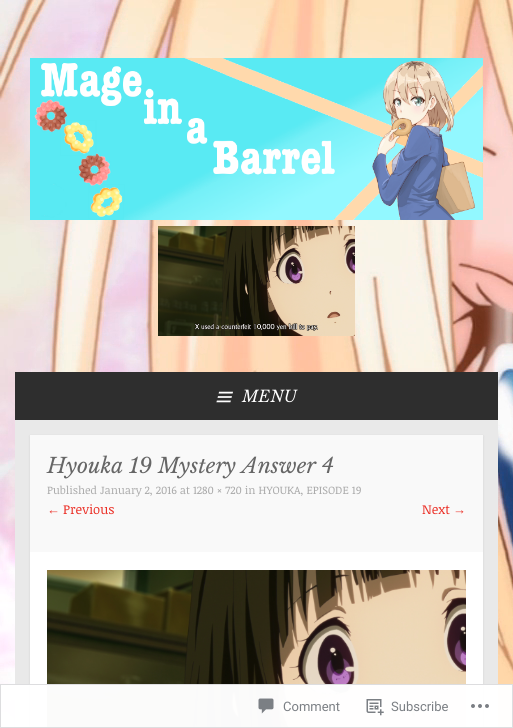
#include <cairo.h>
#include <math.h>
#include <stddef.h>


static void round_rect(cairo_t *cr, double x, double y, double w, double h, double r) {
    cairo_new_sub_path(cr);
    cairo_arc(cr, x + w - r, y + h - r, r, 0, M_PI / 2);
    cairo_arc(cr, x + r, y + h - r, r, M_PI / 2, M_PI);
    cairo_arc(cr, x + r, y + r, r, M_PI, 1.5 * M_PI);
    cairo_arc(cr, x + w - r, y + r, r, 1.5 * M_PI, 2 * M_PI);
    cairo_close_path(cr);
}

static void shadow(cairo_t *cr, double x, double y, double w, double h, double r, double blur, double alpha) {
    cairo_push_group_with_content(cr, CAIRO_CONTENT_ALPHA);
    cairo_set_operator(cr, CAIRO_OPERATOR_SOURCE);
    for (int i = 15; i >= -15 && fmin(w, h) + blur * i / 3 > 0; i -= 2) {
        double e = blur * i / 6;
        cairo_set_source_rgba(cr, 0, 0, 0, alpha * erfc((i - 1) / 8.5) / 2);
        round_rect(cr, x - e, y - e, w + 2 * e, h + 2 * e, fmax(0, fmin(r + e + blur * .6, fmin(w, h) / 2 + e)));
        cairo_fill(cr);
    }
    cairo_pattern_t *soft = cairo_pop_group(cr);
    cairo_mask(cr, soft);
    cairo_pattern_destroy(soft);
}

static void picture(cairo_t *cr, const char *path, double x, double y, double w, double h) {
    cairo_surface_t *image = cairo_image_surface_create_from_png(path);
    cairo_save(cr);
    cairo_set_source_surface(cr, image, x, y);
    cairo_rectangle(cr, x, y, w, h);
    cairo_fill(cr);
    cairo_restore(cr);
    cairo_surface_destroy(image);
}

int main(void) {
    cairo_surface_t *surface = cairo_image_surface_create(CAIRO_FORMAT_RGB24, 513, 728);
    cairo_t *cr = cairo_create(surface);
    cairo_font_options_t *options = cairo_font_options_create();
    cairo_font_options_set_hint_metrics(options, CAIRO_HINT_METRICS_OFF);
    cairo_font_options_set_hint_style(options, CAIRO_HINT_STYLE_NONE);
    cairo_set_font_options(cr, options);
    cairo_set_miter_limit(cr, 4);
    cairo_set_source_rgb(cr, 1, 1, 1);
    cairo_paint(cr);
    picture(cr, "img1.png", 0, 0, 513, 728);
    picture(cr, "img2.png", 30, 58, 453, 162);
    picture(cr, "img3.png", 158, 226, 197, 110);
    cairo_set_source_rgb(cr, 0.18, 0.18, 0.18);
    cairo_rectangle(cr, 15, 372, 483, 48);
    cairo_fill(cr);
    picture(cr, "img4.png", 216, 391, 17, 12);
    cairo_select_font_face(cr, "Libre Baskerville", CAIRO_FONT_SLANT_ITALIC, CAIRO_FONT_WEIGHT_NORMAL);
    cairo_set_font_size(cr, 16);
    cairo_set_source_rgb(cr, 1, 1, 1);
    cairo_move_to(cr, 242, 402);
    cairo_show_text(cr, "MENU");
    cairo_set_source_rgb(cr, 0.914, 0.914, 0.914);
    cairo_rectangle(cr, 15, 420, 483, 308);
    cairo_fill(cr);
    cairo_set_source_rgb(cr, 0, 0, 0);
    shadow(cr, 30, 436, 453, 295, 0, 1, 0.1);
    cairo_set_source_rgb(cr, 1, 1, 1);
    cairo_rectangle(cr, 30, 552, 453, 176);
    cairo_fill(cr);
    cairo_set_source_rgb(cr, 0.976, 0.976, 0.976);
    cairo_rectangle(cr, 30, 435, 453, 117);
    cairo_fill(cr);
    cairo_set_font_size(cr, 21);
    cairo_set_source_rgb(cr, 0.4, 0.4, 0.4);
    cairo_move_to(cr, 47, 473);
    cairo_show_text(cr, "Hyouka 19 Mystery Answer 4");
    cairo_select_font_face(cr, "Noticia Text", CAIRO_FONT_SLANT_NORMAL, CAIRO_FONT_WEIGHT_NORMAL);
    cairo_set_font_size(cr, 11);
    cairo_set_source_rgb(cr, 0.667, 0.667, 0.667);
    cairo_move_to(cr, 47, 494);
    cairo_show_text(cr, "Published January 2, 2016 at 1280 × 720 in HYOUKA, EPISODE 19");
    cairo_select_font_face(cr, "Liberation Serif", CAIRO_FONT_SLANT_NORMAL, CAIRO_FONT_WEIGHT_NORMAL);
    cairo_set_font_size(cr, 13);
    cairo_set_source_rgb(cr, 0.918, 0.18, 0.145);
    cairo_move_to(cr, 47, 514);
    cairo_show_text(cr, "←");
    cairo_select_font_face(cr, "Noticia Text", CAIRO_FONT_SLANT_NORMAL, CAIRO_FONT_WEIGHT_NORMAL);
    cairo_move_to(cr, 63, 514);
    cairo_show_text(cr, "Previous");
    cairo_move_to(cr, 422, 514);
    cairo_show_text(cr, "Next");
    cairo_select_font_face(cr, "Liberation Serif", CAIRO_FONT_SLANT_NORMAL, CAIRO_FONT_WEIGHT_NORMAL);
    cairo_move_to(cr, 453, 514);
    cairo_show_text(cr, "→");
    picture(cr, "img5.png", 47, 570, 419, 158);
    cairo_set_source_rgba(cr, 1, 1, 1, 0.98);
    cairo_rectangle(cr, 0, 684, 513, 44);
    cairo_fill(cr);
    cairo_rectangle(cr, 0.5, 684.5, 512, 43);
    cairo_set_source_rgba(cr, 0.863, 0.863, 0.871, 0.98);
    cairo_set_line_width(cr, 1);
    cairo_stroke(cr);
    picture(cr, "img6.png", 258, 698, 16, 16);
    cairo_select_font_face(cr, "Roboto", CAIRO_FONT_SLANT_NORMAL, CAIRO_FONT_WEIGHT_NORMAL);
    cairo_set_source_rgb(cr, 0.482, 0.498, 0.518);
    cairo_move_to(cr, 283, 711);
    cairo_show_text(cr, "Comment");
    picture(cr, "img7.png", 366, 699, 18, 17);
    cairo_move_to(cr, 391, 711);
    cairo_show_text(cr, "Subscribe");
    picture(cr, "img8.png", 471, 704, 18, 4);
    cairo_surface_write_to_png(surface, "page.png");
    cairo_font_options_destroy(options);
    cairo_destroy(cr);
    cairo_surface_destroy(surface);
    return 0;
}
